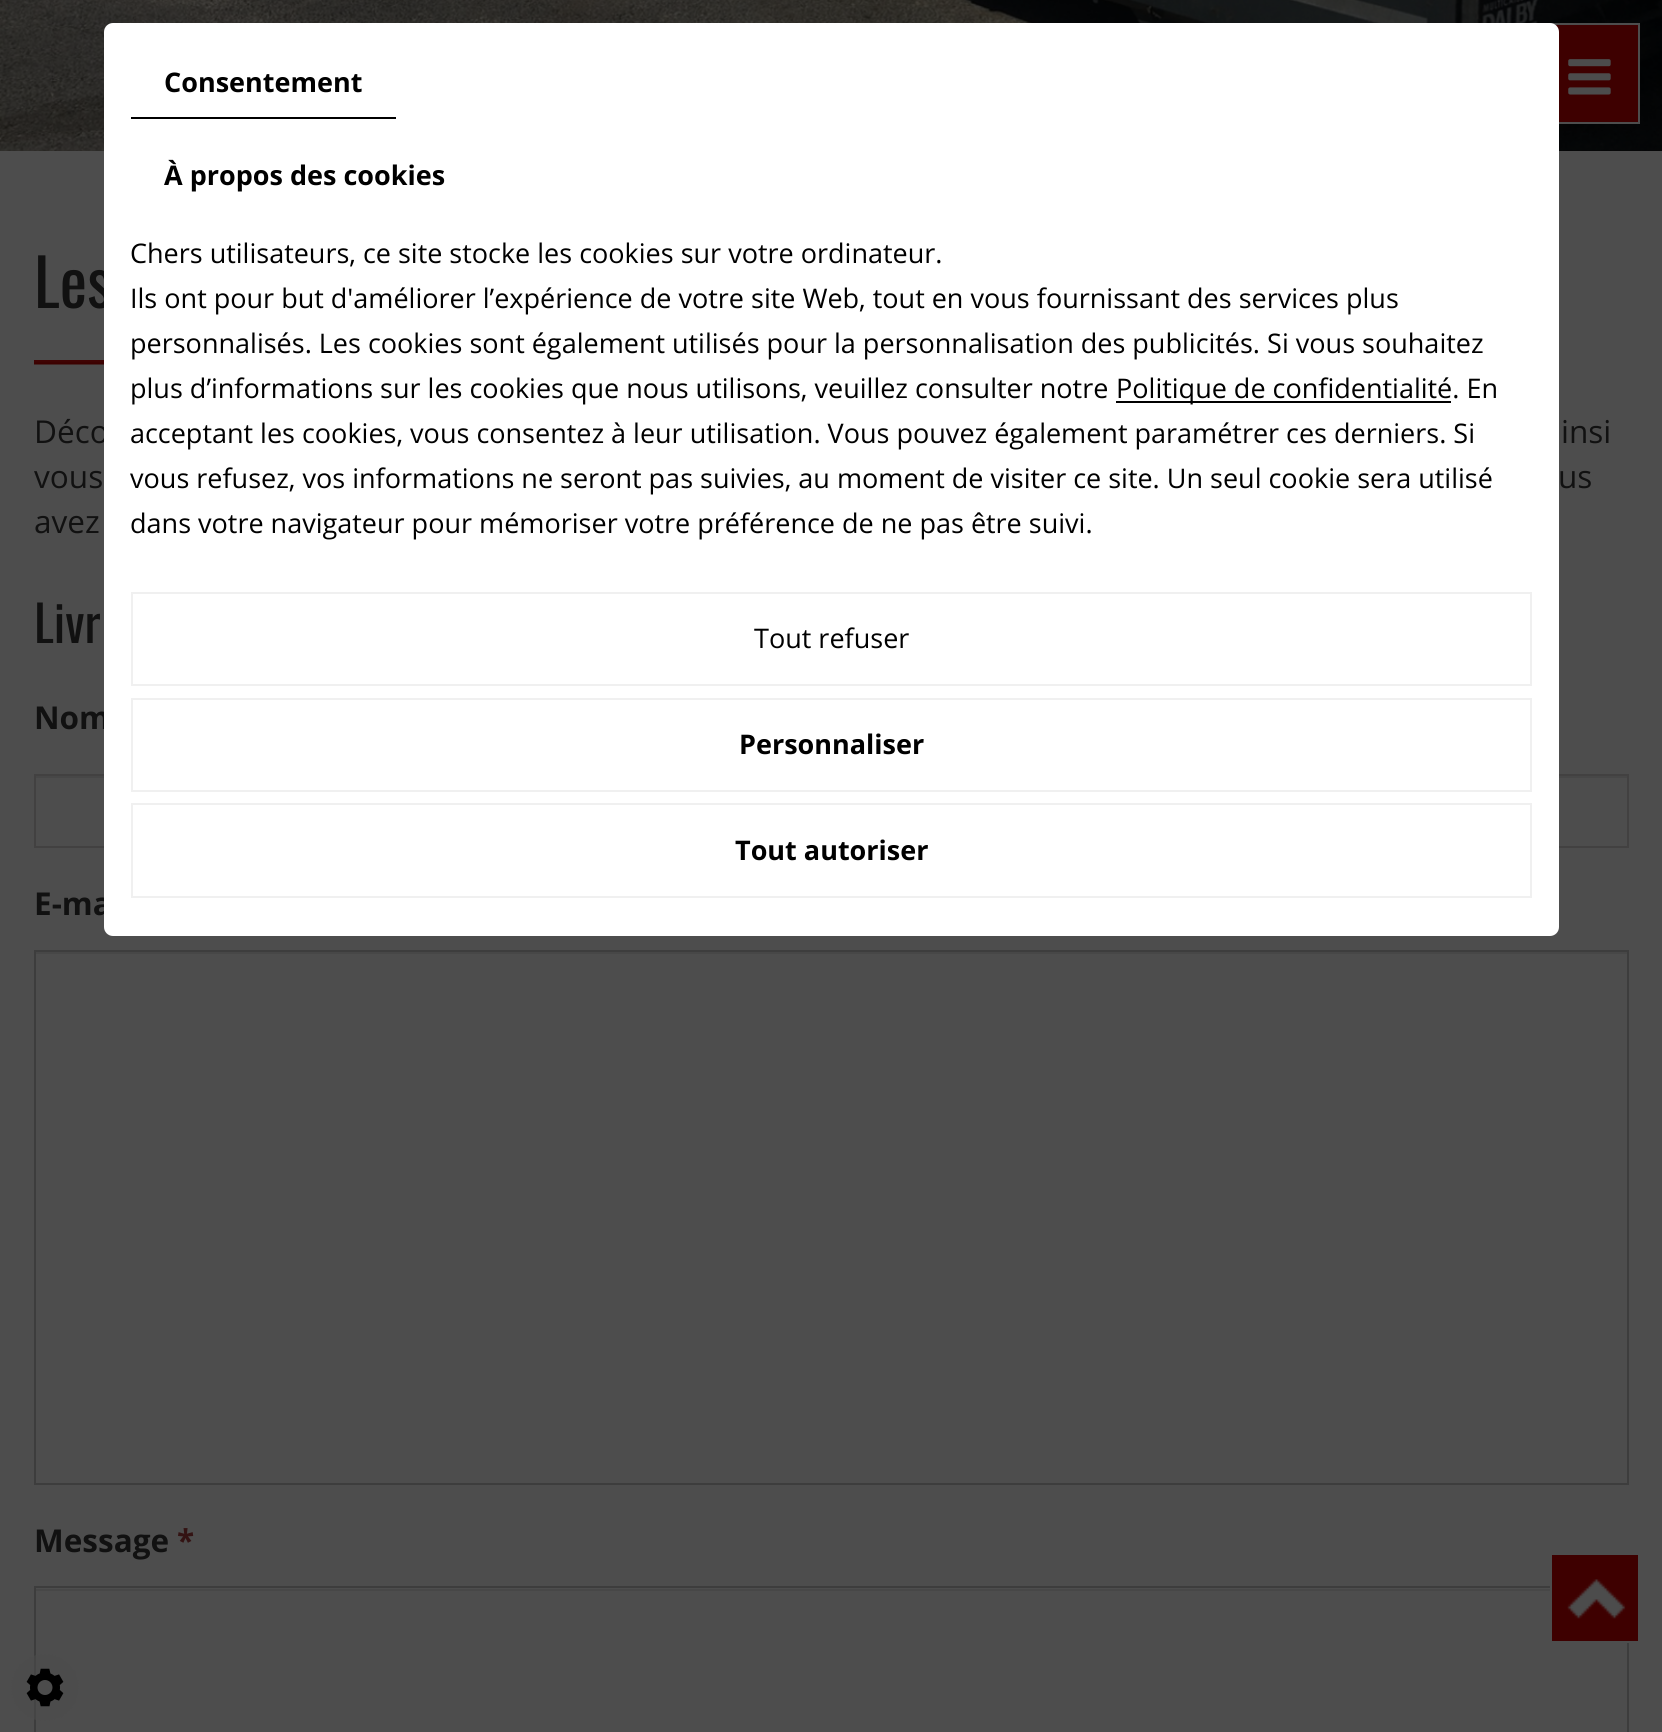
#include <cairo.h>
#include <math.h>
#include <stddef.h>


static void round_rect(cairo_t *cr, double x, double y, double w, double h, double r) {
    cairo_new_sub_path(cr);
    cairo_arc(cr, x + w - r, y + h - r, r, 0, M_PI / 2);
    cairo_arc(cr, x + r, y + h - r, r, M_PI / 2, M_PI);
    cairo_arc(cr, x + r, y + r, r, M_PI, 1.5 * M_PI);
    cairo_arc(cr, x + w - r, y + r, r, 1.5 * M_PI, 2 * M_PI);
    cairo_close_path(cr);
}

static void picture(cairo_t *cr, const char *path, double x, double y, double w, double h) {
    cairo_surface_t *image = cairo_image_surface_create_from_png(path);
    cairo_save(cr);
    cairo_set_source_surface(cr, image, x, y);
    cairo_rectangle(cr, x, y, w, h);
    cairo_fill(cr);
    cairo_restore(cr);
    cairo_surface_destroy(image);
}

int main(void) {
    cairo_surface_t *surface = cairo_image_surface_create(CAIRO_FORMAT_RGB24, 1662, 1732);
    cairo_t *cr = cairo_create(surface);
    cairo_font_options_t *options = cairo_font_options_create();
    cairo_font_options_set_hint_metrics(options, CAIRO_HINT_METRICS_OFF);
    cairo_font_options_set_hint_style(options, CAIRO_HINT_STYLE_NONE);
    cairo_set_font_options(cr, options);
    cairo_set_miter_limit(cr, 4);
    cairo_set_source_rgb(cr, 0.302, 0.302, 0.302);
    cairo_paint(cr);
    picture(cr, "img1.png", 0, 0, 1662, 151);
    cairo_set_source_rgb(cr, 0.243, 0, 0);
    cairo_rectangle(cr, 1555, 25, 83, 97);
    cairo_fill(cr);
    cairo_rectangle(cr, 1540, 24, 99, 99);
    cairo_set_source_rgb(cr, 0.302, 0.302, 0.302);
    cairo_stroke(cr);
    cairo_select_font_face(cr, "Oswald", CAIRO_FONT_SLANT_NORMAL, CAIRO_FONT_WEIGHT_NORMAL);
    cairo_set_font_size(cr, 65);
    cairo_set_source_rgb(cr, 0.067, 0.067, 0.067);
    cairo_move_to(cr, 34, 308);
    cairo_show_text(cr, "Les");
    cairo_select_font_face(cr, "Open Sans", CAIRO_FONT_SLANT_NORMAL, CAIRO_FONT_WEIGHT_NORMAL);
    cairo_set_font_size(cr, 31.5);
    cairo_move_to(cr, 34, 443);
    cairo_show_text(cr, "Déco");
    cairo_select_font_face(cr, "Open Sans", CAIRO_FONT_SLANT_NORMAL, CAIRO_FONT_WEIGHT_BOLD);
    cairo_move_to(cr, 34, 729);
    cairo_show_text(cr, "Nom");
    cairo_set_source_rgb(cr, 0.278, 0.278, 0.278);
    cairo_rectangle(cr, 36, 776, 1591, 2);
    cairo_fill(cr);
    cairo_rectangle(cr, 35, 775, 1593, 72);
    cairo_set_source_rgb(cr, 0.259, 0.255, 0.255);
    cairo_stroke(cr);
    cairo_set_source_rgb(cr, 0.067, 0.067, 0.067);
    cairo_move_to(cr, 34, 915);
    cairo_show_text(cr, "E-ma");
    cairo_set_source_rgb(cr, 1, 1, 1);
    round_rect(cr, 104, 23, 1455, 913, 9);
    cairo_fill(cr);
    cairo_set_source_rgb(cr, 0, 0, 0);
    cairo_rectangle(cr, 131, 117, 265, 2);
    cairo_fill(cr);
    cairo_set_font_size(cr, 27);
    cairo_move_to(cr, 164, 92);
    cairo_show_text(cr, "Consentement");
    cairo_move_to(cr, 164, 185);
    cairo_show_text(cr, "À propos des cookies");
    cairo_select_font_face(cr, "Open Sans", CAIRO_FONT_SLANT_NORMAL, CAIRO_FONT_WEIGHT_NORMAL);
    cairo_move_to(cr, 130, 263);
    cairo_show_text(cr, "Chers utilisateurs, ce site stocke les cookies sur votre ordinateur.");
    cairo_move_to(cr, 130, 308);
    cairo_show_text(cr, "Ils ont pour but d'améliorer l’expérience de votre site Web, tout en vous fournissant des services plus");
    cairo_move_to(cr, 130, 353);
    cairo_show_text(cr, "personnalisés. Les cookies sont également utilisés pour la personnalisation des publicités. Si vous souhaitez");
    cairo_move_to(cr, 130, 398);
    cairo_show_text(cr, "plus d’informations sur les cookies que nous utilisons, veuillez consulter notre");
    cairo_rectangle(cr, 1116, 401, 335, 2);
    cairo_fill(cr);
    cairo_move_to(cr, 1116, 398);
    cairo_show_text(cr, "Politique de confidentialité. En");
    cairo_move_to(cr, 130, 443);
    cairo_show_text(cr, "acceptant les cookies, vous consentez à leur utilisation. Vous pouvez également paramétrer ces derniers. Si");
    cairo_move_to(cr, 130, 488);
    cairo_show_text(cr, "vous refusez, vos informations ne seront pas suivies, au moment de visiter ce site. Un seul cookie sera utilisé");
    cairo_move_to(cr, 130, 533);
    cairo_show_text(cr, "dans votre navigateur pour mémoriser votre préférence de ne pas être suivi.");
    cairo_rectangle(cr, 132, 593, 1399, 92);
    cairo_set_source_rgb(cr, 0.941, 0.941, 0.941);
    cairo_stroke(cr);
    cairo_set_source_rgb(cr, 0, 0, 0);
    cairo_move_to(cr, 754, 648);
    cairo_show_text(cr, "Tout refuser");
    cairo_rectangle(cr, 132, 699, 1399, 92);
    cairo_set_source_rgb(cr, 0.941, 0.941, 0.941);
    cairo_stroke(cr);
    cairo_select_font_face(cr, "Open Sans", CAIRO_FONT_SLANT_NORMAL, CAIRO_FONT_WEIGHT_BOLD);
    cairo_set_source_rgb(cr, 0, 0, 0);
    cairo_move_to(cr, 739, 754);
    cairo_show_text(cr, "Personnaliser");
    cairo_rectangle(cr, 132, 804, 1399, 93);
    cairo_set_source_rgb(cr, 0.941, 0.941, 0.941);
    cairo_stroke(cr);
    cairo_set_source_rgb(cr, 0, 0, 0);
    cairo_move_to(cr, 735, 860);
    cairo_show_text(cr, "Tout autoriser");
    picture(cr, "img2.png", 1568, 59, 43, 36);
    picture(cr, "img3.png", 34, 360, 70, 5);
    cairo_select_font_face(cr, "Open Sans", CAIRO_FONT_SLANT_NORMAL, CAIRO_FONT_WEIGHT_NORMAL);
    cairo_set_font_size(cr, 31.5);
    cairo_set_source_rgb(cr, 0.067, 0.067, 0.067);
    cairo_move_to(cr, 1561, 443);
    cairo_show_text(cr, "insi");
    cairo_move_to(cr, 34, 488);
    cairo_show_text(cr, "vous");
    cairo_move_to(cr, 1558, 488);
    cairo_show_text(cr, "us");
    cairo_move_to(cr, 34, 533);
    cairo_show_text(cr, "avez");
    cairo_select_font_face(cr, "Oswald", CAIRO_FONT_SLANT_NORMAL, CAIRO_FONT_WEIGHT_NORMAL);
    cairo_set_font_size(cr, 50);
    cairo_move_to(cr, 34, 643);
    cairo_show_text(cr, "Livr");
    cairo_set_source_rgb(cr, 0.278, 0.278, 0.278);
    cairo_rectangle(cr, 36, 952, 1591, 2);
    cairo_fill(cr);
    cairo_rectangle(cr, 35, 951, 1593, 533);
    cairo_set_source_rgb(cr, 0.239, 0.239, 0.239);
    cairo_stroke(cr);
    cairo_select_font_face(cr, "Open Sans", CAIRO_FONT_SLANT_NORMAL, CAIRO_FONT_WEIGHT_BOLD);
    cairo_set_font_size(cr, 31.5);
    cairo_set_source_rgb(cr, 0.067, 0.067, 0.067);
    cairo_move_to(cr, 34, 1552);
    cairo_show_text(cr, "Message");
    cairo_set_source_rgb(cr, 0.2, 0.078, 0.078);
    cairo_move_to(cr, 177, 1552);
    cairo_show_text(cr, "*");
    cairo_set_source_rgb(cr, 0.278, 0.278, 0.278);
    cairo_rectangle(cr, 36, 1589, 1514, 2);
    cairo_fill(cr);
    cairo_rectangle(cr, 35, 1587, 1593, 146);
    cairo_set_source_rgb(cr, 0.239, 0.239, 0.239);
    cairo_stroke(cr);
    cairo_set_source_rgb(cr, 0.243, 0, 0);
    cairo_rectangle(cr, 1552, 1555, 86, 86);
    cairo_fill(cr);
    picture(cr, "img4.png", 1567, 1579, 59, 40);
    cairo_rectangle(cr, 1551, 1554, 88, 88);
    cairo_set_source_rgb(cr, 0.302, 0.302, 0.302);
    cairo_stroke(cr);
    cairo_set_source_rgba(cr, 0.302, 0.302, 0.302, 0.54);
    round_rect(cr, 11, 1654, 68, 67, 33.5);
    cairo_fill(cr);
    picture(cr, "img5.png", 26, 1668, 38, 39);
    cairo_surface_write_to_png(surface, "page.png");
    cairo_font_options_destroy(options);
    cairo_destroy(cr);
    cairo_surface_destroy(surface);
    return 0;
}
